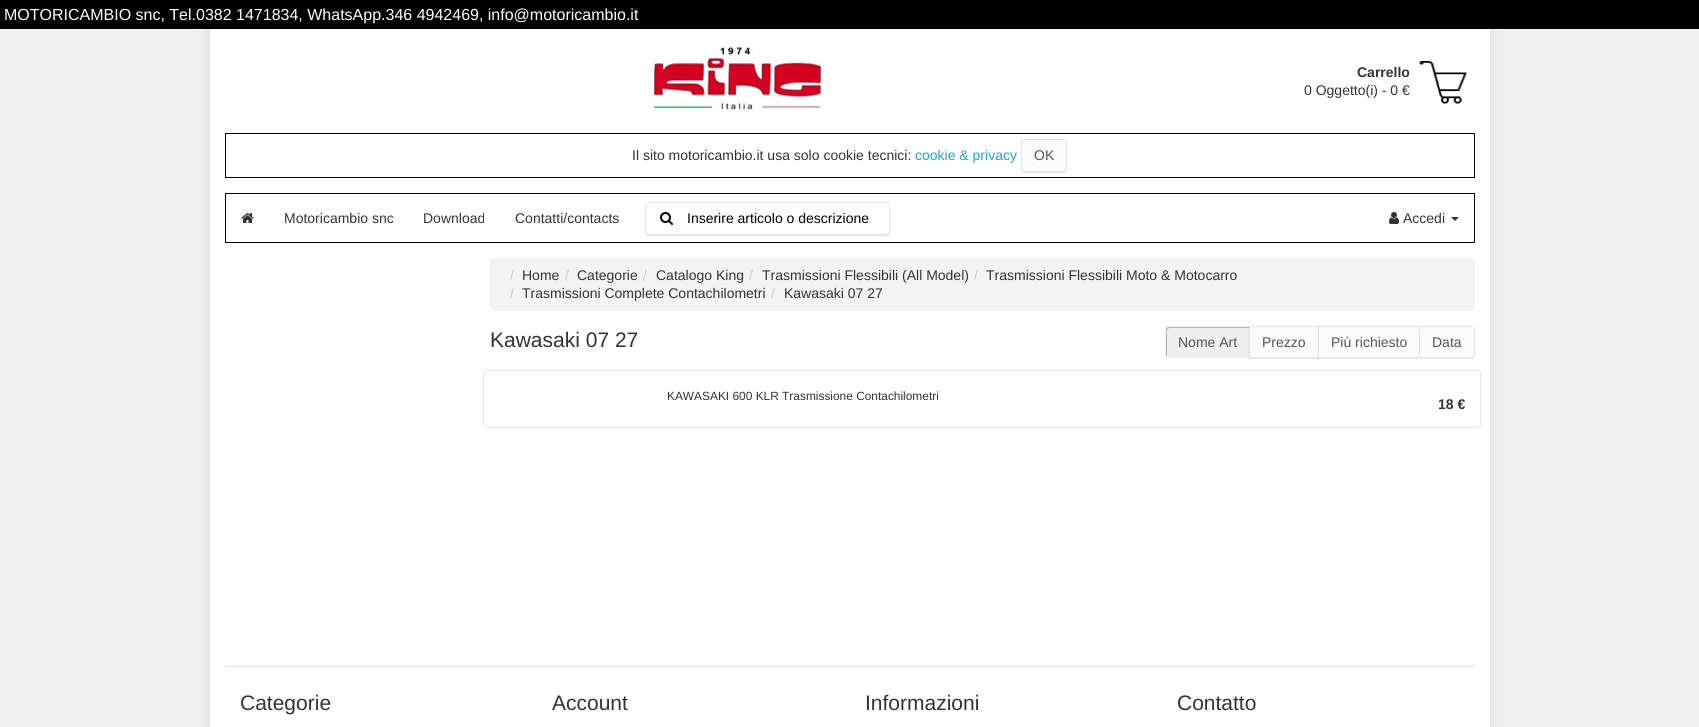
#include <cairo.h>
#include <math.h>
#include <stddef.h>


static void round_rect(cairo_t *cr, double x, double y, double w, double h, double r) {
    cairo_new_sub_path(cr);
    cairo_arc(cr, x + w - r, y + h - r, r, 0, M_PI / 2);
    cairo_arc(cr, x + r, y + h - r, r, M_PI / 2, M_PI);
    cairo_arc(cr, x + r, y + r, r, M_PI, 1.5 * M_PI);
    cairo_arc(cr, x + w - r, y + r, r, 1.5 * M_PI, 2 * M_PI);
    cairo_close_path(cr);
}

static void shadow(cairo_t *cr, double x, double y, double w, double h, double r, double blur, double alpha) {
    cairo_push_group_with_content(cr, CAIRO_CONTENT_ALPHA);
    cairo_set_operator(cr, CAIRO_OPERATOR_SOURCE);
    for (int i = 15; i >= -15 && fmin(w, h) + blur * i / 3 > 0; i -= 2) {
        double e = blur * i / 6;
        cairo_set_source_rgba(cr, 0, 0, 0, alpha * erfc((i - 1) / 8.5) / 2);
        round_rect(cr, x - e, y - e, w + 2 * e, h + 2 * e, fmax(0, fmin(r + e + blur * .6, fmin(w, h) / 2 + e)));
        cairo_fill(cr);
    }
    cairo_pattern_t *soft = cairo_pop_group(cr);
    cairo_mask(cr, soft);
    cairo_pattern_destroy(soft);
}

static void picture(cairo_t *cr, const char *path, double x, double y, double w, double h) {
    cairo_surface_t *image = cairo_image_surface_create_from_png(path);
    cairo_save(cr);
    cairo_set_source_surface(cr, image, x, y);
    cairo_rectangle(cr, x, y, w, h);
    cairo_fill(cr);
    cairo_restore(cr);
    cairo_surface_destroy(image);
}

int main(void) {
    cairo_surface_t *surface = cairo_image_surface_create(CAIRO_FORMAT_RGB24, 1699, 727);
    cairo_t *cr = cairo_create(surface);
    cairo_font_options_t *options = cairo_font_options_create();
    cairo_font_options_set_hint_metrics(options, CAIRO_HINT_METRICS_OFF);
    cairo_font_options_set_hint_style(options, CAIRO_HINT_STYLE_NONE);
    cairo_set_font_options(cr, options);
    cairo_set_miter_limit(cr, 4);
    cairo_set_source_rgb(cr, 0.941, 0.941, 0.941);
    cairo_paint(cr);
    cairo_set_source_rgb(cr, 0, 0, 0);
    cairo_rectangle(cr, 0, 0, 1699, 29);
    cairo_fill(cr);
    cairo_set_source_rgb(cr, 0, 0, 0);
    shadow(cr, 210, 29, 1280, 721, 0, 7.5, 0.1);
    cairo_select_font_face(cr, "Liberation Sans", CAIRO_FONT_SLANT_NORMAL, CAIRO_FONT_WEIGHT_NORMAL);
    cairo_set_font_size(cr, 16);
    cairo_set_source_rgb(cr, 1, 1, 1);
    cairo_move_to(cr, 4, 20);
    cairo_show_text(cr, "MOTORICAMBIO snc, Tel.0382 1471834, WhatsApp.346 4942469, info@motoricambio.it");
    cairo_rectangle(cr, 210, 29, 1280, 698);
    cairo_fill(cr);
    picture(cr, "img1.png", 648, 47, 181, 66);
    cairo_select_font_face(cr, "Liberation Sans", CAIRO_FONT_SLANT_NORMAL, CAIRO_FONT_WEIGHT_BOLD);
    cairo_set_font_size(cr, 14);
    cairo_set_source_rgb(cr, 0.2, 0.2, 0.2);
    cairo_move_to(cr, 1357, 77);
    cairo_show_text(cr, "Carrello");
    cairo_select_font_face(cr, "Liberation Sans", CAIRO_FONT_SLANT_NORMAL, CAIRO_FONT_WEIGHT_NORMAL);
    cairo_move_to(cr, 1304, 95);
    cairo_show_text(cr, "0 Oggetto(i) - 0 €");
    picture(cr, "img2.png", 1419, 61, 48, 43);
    cairo_rectangle(cr, 225.5, 133.5, 1249, 44);
    cairo_set_source_rgb(cr, 0, 0, 0);
    cairo_set_line_width(cr, 1);
    cairo_stroke(cr);
    cairo_set_source_rgb(cr, 0.2, 0.2, 0.2);
    cairo_move_to(cr, 632, 160);
    cairo_show_text(cr, "Il sito motoricambio.it usa solo cookie tecnici:");
    cairo_set_source_rgb(cr, 0.18, 0.612, 0.831);
    cairo_move_to(cr, 915, 160);
    cairo_show_text(cr, "cookie & privacy");
    cairo_set_source_rgb(cr, 0, 0, 0);
    shadow(cr, 1021, 140, 46, 33, 3, 0.5, 0.1);
    cairo_set_source_rgb(cr, 0.988, 0.988, 0.988);
    round_rect(cr, 1021, 139, 46, 33, 3);
    cairo_fill(cr);
    round_rect(cr, 1021.5, 139.5, 45, 32, 2.5);
    cairo_set_source_rgba(cr, 0, 0, 0, 0.1);
    cairo_stroke(cr);
    cairo_set_source_rgb(cr, 0.333, 0.333, 0.333);
    cairo_move_to(cr, 1034, 160);
    cairo_show_text(cr, "OK");
    cairo_rectangle(cr, 225.5, 193.5, 1249, 49);
    cairo_set_source_rgb(cr, 0, 0, 0);
    cairo_stroke(cr);
    picture(cr, "img3.png", 241, 213, 13, 10);
    cairo_set_source_rgb(cr, 0.2, 0.2, 0.2);
    cairo_move_to(cr, 284, 223);
    cairo_show_text(cr, "Motoricambio snc");
    cairo_move_to(cr, 423, 223);
    cairo_show_text(cr, "Download");
    cairo_move_to(cr, 515, 223);
    cairo_show_text(cr, "Contatti/contacts");
    cairo_set_source_rgb(cr, 0, 0, 0);
    shadow(cr, 645, 203, 245, 33, 4, 0.5, 0.1);
    cairo_set_source_rgb(cr, 1, 1, 1);
    round_rect(cr, 645, 202, 245, 33, 4);
    cairo_fill(cr);
    round_rect(cr, 645.5, 202.5, 244, 32, 3.5);
    cairo_set_source_rgba(cr, 0, 0, 0, 0.1);
    cairo_stroke(cr);
    picture(cr, "img4.png", 660, 212, 13, 13);
    cairo_set_source_rgb(cr, 0, 0, 0);
    cairo_move_to(cr, 687, 223);
    cairo_show_text(cr, "Inserire articolo o descrizione");
    picture(cr, "img5.png", 1389, 212, 10, 12);
    cairo_set_source_rgb(cr, 0.2, 0.2, 0.2);
    cairo_move_to(cr, 1403, 223);
    cairo_show_text(cr, "Accedi");
    cairo_new_path(cr);
    cairo_move_to(cr, 1451, 217);
    cairo_line_to(cr, 1459, 217);
    cairo_line_to(cr, 1455, 221);
    cairo_close_path(cr);
    cairo_fill(cr);
    cairo_set_source_rgb(cr, 0.953, 0.953, 0.953);
    round_rect(cr, 490, 258, 985, 53, 4);
    cairo_fill(cr);
    cairo_set_source_rgb(cr, 0.8, 0.8, 0.8);
    cairo_move_to(cr, 510, 280);
    cairo_show_text(cr, "/");
    cairo_set_source_rgb(cr, 0.2, 0.2, 0.2);
    cairo_move_to(cr, 522, 280);
    cairo_show_text(cr, "Home");
    cairo_set_source_rgb(cr, 0.8, 0.8, 0.8);
    cairo_move_to(cr, 565, 280);
    cairo_show_text(cr, "/");
    cairo_set_source_rgb(cr, 0.2, 0.2, 0.2);
    cairo_move_to(cr, 577, 280);
    cairo_show_text(cr, "Categorie");
    cairo_set_source_rgb(cr, 0.8, 0.8, 0.8);
    cairo_move_to(cr, 643, 280);
    cairo_show_text(cr, "/");
    cairo_set_source_rgb(cr, 0.2, 0.2, 0.2);
    cairo_move_to(cr, 656, 280);
    cairo_show_text(cr, "Catalogo King");
    cairo_set_source_rgb(cr, 0.8, 0.8, 0.8);
    cairo_move_to(cr, 749, 280);
    cairo_show_text(cr, "/");
    cairo_set_source_rgb(cr, 0.2, 0.2, 0.2);
    cairo_move_to(cr, 762, 280);
    cairo_show_text(cr, "Trasmissioni Flessibili (All Model)");
    cairo_set_source_rgb(cr, 0.8, 0.8, 0.8);
    cairo_move_to(cr, 974, 280);
    cairo_show_text(cr, "/");
    cairo_set_source_rgb(cr, 0.2, 0.2, 0.2);
    cairo_move_to(cr, 986, 280);
    cairo_show_text(cr, "Trasmissioni Flessibili Moto & Motocarro");
    cairo_set_source_rgb(cr, 0.8, 0.8, 0.8);
    cairo_move_to(cr, 510, 298);
    cairo_show_text(cr, "/");
    cairo_set_source_rgb(cr, 0.2, 0.2, 0.2);
    cairo_move_to(cr, 522, 298);
    cairo_show_text(cr, "Trasmissioni Complete Contachilometri");
    cairo_set_source_rgb(cr, 0.8, 0.8, 0.8);
    cairo_move_to(cr, 771, 298);
    cairo_show_text(cr, "/");
    cairo_set_source_rgb(cr, 0.2, 0.2, 0.2);
    cairo_move_to(cr, 784, 298);
    cairo_show_text(cr, "Kawasaki 07 27");
    cairo_set_font_size(cr, 21);
    cairo_move_to(cr, 490, 347);
    cairo_show_text(cr, "Kawasaki 07 27");
    cairo_set_source_rgb(cr, 0.937, 0.937, 0.937);
    cairo_new_path(cr);
    cairo_move_to(cr, 1169, 326);
    cairo_line_to(cr, 1250, 326);
    cairo_line_to(cr, 1250, 358);
    cairo_line_to(cr, 1169, 358);
    cairo_curve_to(cr, 1167, 358, 1165, 356, 1165, 354);
    cairo_line_to(cr, 1165, 330);
    cairo_curve_to(cr, 1165, 328, 1167, 326, 1169, 326);
    cairo_close_path(cr);
    cairo_fill(cr);
    cairo_set_source_rgb(cr, 0.702, 0.702, 0.702);
    cairo_new_path(cr);
    cairo_move_to(cr, 1170, 328);
    cairo_line_to(cr, 1249, 328);
    cairo_line_to(cr, 1249, 327);
    cairo_line_to(cr, 1169, 327);
    cairo_curve_to(cr, 1167, 327, 1166, 328, 1166, 330);
    cairo_line_to(cr, 1166, 354);
    cairo_curve_to(cr, 1166, 355, 1166, 356, 1167, 356);
    cairo_line_to(cr, 1167, 335);
    cairo_curve_to(cr, 1167, 332, 1166, 328, 1170, 328);
    cairo_close_path(cr);
    cairo_fill(cr);
    cairo_set_font_size(cr, 14);
    cairo_set_source_rgb(cr, 0.333, 0.333, 0.333);
    cairo_move_to(cr, 1178, 347);
    cairo_show_text(cr, "Nome Art");
    cairo_set_source_rgb(cr, 0, 0, 0);
    shadow(cr, 1249, 327, 70, 32, 0, 0.5, 0.1);
    cairo_set_source_rgb(cr, 0.988, 0.988, 0.988);
    cairo_rectangle(cr, 1249.5, 326.5, 69, 31);
    cairo_fill_preserve(cr);
    cairo_set_source_rgb(cr, 0.89, 0.89, 0.89);
    cairo_stroke(cr);
    cairo_set_source_rgb(cr, 0.333, 0.333, 0.333);
    cairo_move_to(cr, 1262, 347);
    cairo_show_text(cr, "Prezzo");
    cairo_set_source_rgb(cr, 0, 0, 0);
    shadow(cr, 1318, 327, 102, 32, 0, 0.5, 0.1);
    cairo_set_source_rgb(cr, 0.988, 0.988, 0.988);
    cairo_rectangle(cr, 1318.5, 326.5, 101, 31);
    cairo_fill_preserve(cr);
    cairo_set_source_rgb(cr, 0.89, 0.89, 0.89);
    cairo_stroke(cr);
    cairo_set_source_rgb(cr, 0.333, 0.333, 0.333);
    cairo_move_to(cr, 1331, 347);
    cairo_show_text(cr, "Più richiesto");
    cairo_set_source_rgb(cr, 0, 0, 0);
    shadow(cr, 1419, 327, 56, 32, 4, 0.5, 0.1);
    cairo_set_source_rgb(cr, 0.988, 0.988, 0.988);
    cairo_new_path(cr);
    cairo_move_to(cr, 1419, 326);
    cairo_line_to(cr, 1471, 326);
    cairo_curve_to(cr, 1473, 326, 1475, 328, 1475, 330);
    cairo_line_to(cr, 1475, 354);
    cairo_curve_to(cr, 1475, 356, 1473, 358, 1471, 358);
    cairo_line_to(cr, 1419, 358);
    cairo_close_path(cr);
    cairo_fill(cr);
    cairo_new_path(cr);
    cairo_move_to(cr, 1419.5, 326.5);
    cairo_line_to(cr, 1471, 326.5);
    cairo_curve_to(cr, 1473, 326.5, 1474.5, 328, 1474.5, 330);
    cairo_line_to(cr, 1474.5, 354);
    cairo_curve_to(cr, 1474.5, 356, 1473, 357.5, 1471, 357.5);
    cairo_line_to(cr, 1419.5, 357.5);
    cairo_close_path(cr);
    cairo_set_source_rgba(cr, 0, 0, 0, 0.1);
    cairo_stroke(cr);
    cairo_set_source_rgb(cr, 0.333, 0.333, 0.333);
    cairo_move_to(cr, 1432, 347);
    cairo_show_text(cr, "Data");
    round_rect(cr, 483.5, 370.5, 997, 57, 3.5);
    cairo_set_source_rgb(cr, 0.902, 0.902, 0.902);
    cairo_stroke(cr);
    cairo_set_font_size(cr, 11.9);
    cairo_set_source_rgb(cr, 0.2, 0.2, 0.2);
    cairo_move_to(cr, 667, 400);
    cairo_show_text(cr, "KAWASAKI 600 KLR Trasmissione Contachilometri");
    cairo_select_font_face(cr, "Liberation Sans", CAIRO_FONT_SLANT_NORMAL, CAIRO_FONT_WEIGHT_BOLD);
    cairo_set_font_size(cr, 14);
    cairo_move_to(cr, 1438, 409);
    cairo_show_text(cr, "18 €");
    cairo_set_source_rgb(cr, 0.898, 0.898, 0.898);
    cairo_rectangle(cr, 225, 666, 1250, 1);
    cairo_fill(cr);
    cairo_select_font_face(cr, "Liberation Sans", CAIRO_FONT_SLANT_NORMAL, CAIRO_FONT_WEIGHT_NORMAL);
    cairo_set_font_size(cr, 21);
    cairo_set_source_rgb(cr, 0.2, 0.2, 0.2);
    cairo_move_to(cr, 240, 710);
    cairo_show_text(cr, "Categorie");
    cairo_move_to(cr, 552, 710);
    cairo_show_text(cr, "Account");
    cairo_move_to(cr, 865, 710);
    cairo_show_text(cr, "Informazioni");
    cairo_move_to(cr, 1177, 710);
    cairo_show_text(cr, "Contatto");
    cairo_surface_write_to_png(surface, "page.png");
    cairo_font_options_destroy(options);
    cairo_destroy(cr);
    cairo_surface_destroy(surface);
    return 0;
}
